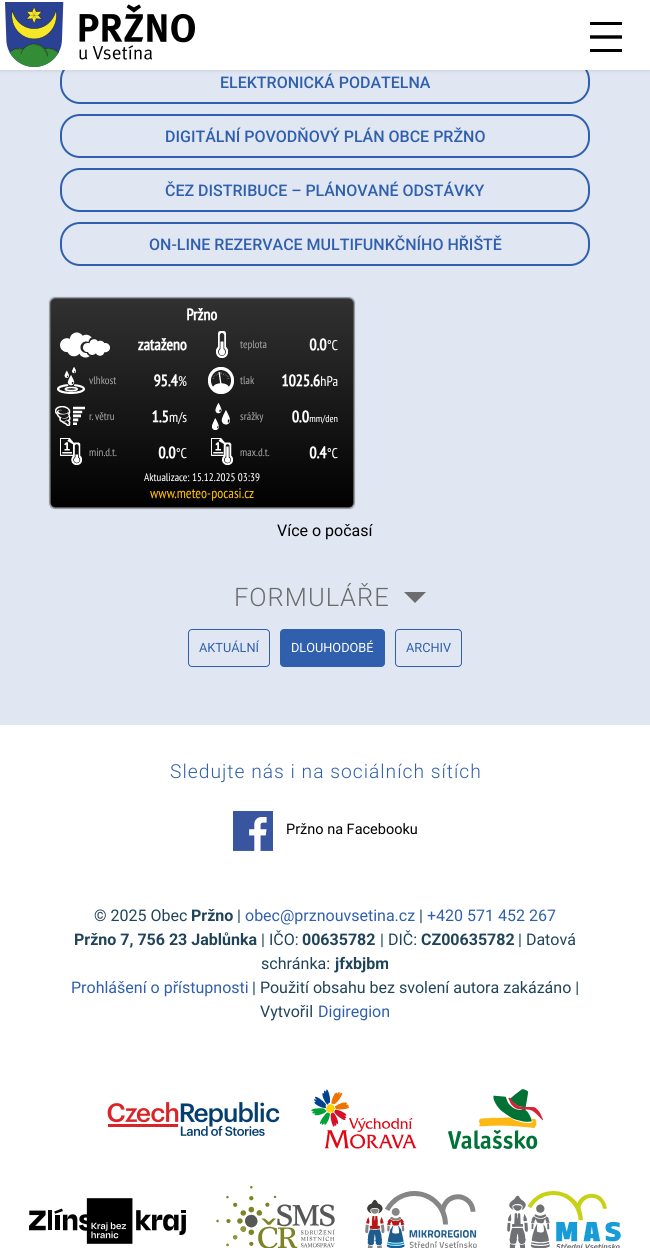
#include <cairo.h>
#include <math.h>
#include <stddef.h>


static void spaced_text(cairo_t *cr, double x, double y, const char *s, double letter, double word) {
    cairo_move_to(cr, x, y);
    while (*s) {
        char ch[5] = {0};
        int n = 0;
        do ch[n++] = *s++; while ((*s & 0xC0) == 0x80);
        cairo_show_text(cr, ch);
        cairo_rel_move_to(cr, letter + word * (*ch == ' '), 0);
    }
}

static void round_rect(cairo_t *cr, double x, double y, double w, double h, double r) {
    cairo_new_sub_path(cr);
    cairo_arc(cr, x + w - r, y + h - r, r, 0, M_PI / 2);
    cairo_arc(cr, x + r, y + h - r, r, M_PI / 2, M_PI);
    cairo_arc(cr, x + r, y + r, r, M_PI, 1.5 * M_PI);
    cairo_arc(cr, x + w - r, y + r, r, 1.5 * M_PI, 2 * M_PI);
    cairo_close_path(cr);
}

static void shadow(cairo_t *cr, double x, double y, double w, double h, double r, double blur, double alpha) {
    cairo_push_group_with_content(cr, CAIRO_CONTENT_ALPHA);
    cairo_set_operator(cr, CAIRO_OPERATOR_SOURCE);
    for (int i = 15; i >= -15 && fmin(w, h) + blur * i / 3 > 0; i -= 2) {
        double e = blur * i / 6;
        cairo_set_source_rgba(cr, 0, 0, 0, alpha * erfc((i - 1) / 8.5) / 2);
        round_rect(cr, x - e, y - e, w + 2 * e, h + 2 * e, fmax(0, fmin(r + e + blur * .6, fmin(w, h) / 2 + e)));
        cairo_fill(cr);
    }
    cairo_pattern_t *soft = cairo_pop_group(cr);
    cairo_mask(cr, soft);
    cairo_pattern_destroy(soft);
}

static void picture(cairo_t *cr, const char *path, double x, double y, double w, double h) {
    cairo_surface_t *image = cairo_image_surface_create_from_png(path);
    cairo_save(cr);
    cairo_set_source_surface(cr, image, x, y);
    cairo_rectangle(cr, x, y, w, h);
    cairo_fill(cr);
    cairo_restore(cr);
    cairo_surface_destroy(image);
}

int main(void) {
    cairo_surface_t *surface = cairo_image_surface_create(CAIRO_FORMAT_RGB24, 650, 1248);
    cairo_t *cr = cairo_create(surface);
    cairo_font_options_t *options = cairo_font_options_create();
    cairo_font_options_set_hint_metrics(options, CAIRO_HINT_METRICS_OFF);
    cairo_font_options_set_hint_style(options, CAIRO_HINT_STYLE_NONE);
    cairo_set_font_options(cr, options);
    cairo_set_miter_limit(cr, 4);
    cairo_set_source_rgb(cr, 1, 1, 1);
    cairo_paint(cr);
    cairo_set_source_rgb(cr, 0.878, 0.906, 0.953);
    cairo_rectangle(cr, 0, 70, 650, 655);
    cairo_fill(cr);
    round_rect(cr, 61, 61, 528, 42, 19);
    cairo_set_source_rgb(cr, 0.188, 0.376, 0.678);
    cairo_stroke(cr);
    cairo_set_source_rgb(cr, 0, 0, 0);
    shadow(cr, 0, 1, 650, 70, 0, 1.5, 0.1);
    cairo_set_source_rgb(cr, 1, 1, 1);
    cairo_rectangle(cr, 0, 0, 650, 70);
    cairo_fill(cr);
    picture(cr, "img1.png", 5, 2, 190, 65);
    cairo_set_source_rgb(cr, 0, 0, 0);
    cairo_rectangle(cr, 590, 22, 32, 3);
    cairo_fill(cr);
    cairo_new_path(cr);
    cairo_move_to(cr, 590, 37);
    cairo_line_to(cr, 622, 37);
    cairo_set_line_width(cr, 3.4);
    cairo_stroke(cr);
    cairo_rectangle(cr, 590, 49, 32, 3);
    cairo_fill(cr);
    cairo_select_font_face(cr, "Roboto Medium", CAIRO_FONT_SLANT_NORMAL, CAIRO_FONT_WEIGHT_NORMAL);
    cairo_set_font_size(cr, 16);
    cairo_set_source_rgb(cr, 0.188, 0.376, 0.678);
    cairo_move_to(cr, 220, 88);
    cairo_show_text(cr, "ELEKTRONICKÁ PODATELNA");
    round_rect(cr, 61, 115, 528, 42, 19);
    cairo_set_line_width(cr, 2);
    cairo_stroke(cr);
    cairo_move_to(cr, 165, 142);
    cairo_show_text(cr, "DIGITÁLNÍ POVODŇOVÝ PLÁN OBCE PRŽNO");
    round_rect(cr, 61, 169, 528, 42, 19);
    cairo_stroke(cr);
    cairo_move_to(cr, 165, 196);
    cairo_show_text(cr, "ČEZ DISTRIBUCE – PLÁNOVANÉ ODSTÁVKY");
    round_rect(cr, 61, 223, 528, 42, 19);
    cairo_stroke(cr);
    cairo_move_to(cr, 149, 250);
    cairo_show_text(cr, "ON-LINE REZERVACE MULTIFUNKČNÍHO HŘIŠTĚ");
    picture(cr, "img2.png", 48, 296, 308, 214);
    cairo_select_font_face(cr, "Roboto", CAIRO_FONT_SLANT_NORMAL, CAIRO_FONT_WEIGHT_NORMAL);
    cairo_set_source_rgb(cr, 0, 0, 0);
    cairo_move_to(cr, 277, 536);
    cairo_show_text(cr, "Více o počasí");
    cairo_select_font_face(cr, "Roboto Light", CAIRO_FONT_SLANT_NORMAL, CAIRO_FONT_WEIGHT_NORMAL);
    cairo_set_font_size(cr, 25.5);
    cairo_set_source_rgb(cr, 0.424, 0.424, 0.424);
    spaced_text(cr, 234, 606, "FORMULÁŘE", 1, 0);
    cairo_new_path(cr);
    cairo_move_to(cr, 404, 592);
    cairo_line_to(cr, 426, 592);
    cairo_line_to(cr, 415, 603);
    cairo_close_path(cr);
    cairo_fill(cr);
    round_rect(cr, 188.5, 629.5, 81, 37, 3.5);
    cairo_set_source_rgb(cr, 0.188, 0.376, 0.678);
    cairo_set_line_width(cr, 1);
    cairo_stroke(cr);
    cairo_select_font_face(cr, "Roboto", CAIRO_FONT_SLANT_NORMAL, CAIRO_FONT_WEIGHT_NORMAL);
    cairo_set_font_size(cr, 12.75);
    cairo_move_to(cr, 199, 652);
    cairo_show_text(cr, "AKTUÁLNÍ");
    round_rect(cr, 280.5, 629.5, 104, 37, 3.5);
    cairo_fill_preserve(cr);
    cairo_stroke(cr);
    cairo_set_source_rgb(cr, 1, 1, 1);
    cairo_move_to(cr, 291, 652);
    cairo_show_text(cr, "DLOUHODOBÉ");
    round_rect(cr, 395.5, 629.5, 66, 37, 3.5);
    cairo_set_source_rgb(cr, 0.188, 0.376, 0.678);
    cairo_stroke(cr);
    cairo_move_to(cr, 406, 652);
    cairo_show_text(cr, "ARCHIV");
    cairo_select_font_face(cr, "Roboto Light", CAIRO_FONT_SLANT_NORMAL, CAIRO_FONT_WEIGHT_NORMAL);
    cairo_set_font_size(cr, 19.25);
    spaced_text(cr, 170, 778, "Sledujte nás i na sociálních sítích", 1, 0);
    picture(cr, "img3.png", 233, 811, 40, 40);
    cairo_select_font_face(cr, "Roboto", CAIRO_FONT_SLANT_NORMAL, CAIRO_FONT_WEIGHT_NORMAL);
    cairo_set_font_size(cr, 14.5);
    cairo_set_source_rgb(cr, 0, 0, 0);
    cairo_move_to(cr, 286, 834);
    cairo_show_text(cr, "Pržno na Facebooku");
    cairo_set_font_size(cr, 16);
    cairo_set_source_rgb(cr, 0.125, 0.267, 0.349);
    cairo_move_to(cr, 94, 921);
    cairo_show_text(cr, "© 2025 Obec");
    cairo_select_font_face(cr, "Roboto", CAIRO_FONT_SLANT_NORMAL, CAIRO_FONT_WEIGHT_BOLD);
    cairo_move_to(cr, 191, 921);
    cairo_show_text(cr, "Pržno");
    cairo_select_font_face(cr, "Roboto", CAIRO_FONT_SLANT_NORMAL, CAIRO_FONT_WEIGHT_NORMAL);
    cairo_move_to(cr, 237, 921);
    cairo_show_text(cr, "|");
    cairo_set_source_rgb(cr, 0.188, 0.376, 0.678);
    cairo_move_to(cr, 245, 921);
    cairo_show_text(cr, "obec@prznouvsetina.cz");
    cairo_set_source_rgb(cr, 0.125, 0.267, 0.349);
    cairo_move_to(cr, 419, 921);
    cairo_show_text(cr, "|");
    cairo_set_source_rgb(cr, 0.188, 0.376, 0.678);
    cairo_move_to(cr, 427, 921);
    cairo_show_text(cr, "+420 571 452 267");
    cairo_select_font_face(cr, "Roboto", CAIRO_FONT_SLANT_NORMAL, CAIRO_FONT_WEIGHT_BOLD);
    cairo_set_source_rgb(cr, 0.125, 0.267, 0.349);
    cairo_move_to(cr, 74, 945);
    cairo_show_text(cr, "Pržno 7, 756 23 Jablůnka");
    cairo_select_font_face(cr, "Roboto", CAIRO_FONT_SLANT_NORMAL, CAIRO_FONT_WEIGHT_NORMAL);
    cairo_move_to(cr, 261, 945);
    cairo_show_text(cr, "| IČO:");
    cairo_select_font_face(cr, "Roboto", CAIRO_FONT_SLANT_NORMAL, CAIRO_FONT_WEIGHT_BOLD);
    cairo_move_to(cr, 302, 945);
    cairo_show_text(cr, "00635782");
    cairo_select_font_face(cr, "Roboto", CAIRO_FONT_SLANT_NORMAL, CAIRO_FONT_WEIGHT_NORMAL);
    cairo_move_to(cr, 380, 945);
    cairo_show_text(cr, "| DIČ:");
    cairo_select_font_face(cr, "Roboto", CAIRO_FONT_SLANT_NORMAL, CAIRO_FONT_WEIGHT_BOLD);
    cairo_move_to(cr, 421, 945);
    cairo_show_text(cr, "CZ00635782");
    cairo_select_font_face(cr, "Roboto", CAIRO_FONT_SLANT_NORMAL, CAIRO_FONT_WEIGHT_NORMAL);
    cairo_move_to(cr, 518, 945);
    cairo_show_text(cr, "| Datová");
    cairo_move_to(cr, 261, 969);
    cairo_show_text(cr, "schránka:");
    cairo_select_font_face(cr, "Roboto", CAIRO_FONT_SLANT_NORMAL, CAIRO_FONT_WEIGHT_BOLD);
    cairo_move_to(cr, 335, 969);
    cairo_show_text(cr, "jfxbjbm");
    cairo_select_font_face(cr, "Roboto", CAIRO_FONT_SLANT_NORMAL, CAIRO_FONT_WEIGHT_NORMAL);
    cairo_set_source_rgb(cr, 0.188, 0.376, 0.678);
    cairo_move_to(cr, 71, 993);
    cairo_show_text(cr, "Prohlášení o přístupnosti");
    cairo_set_source_rgb(cr, 0.125, 0.267, 0.349);
    cairo_move_to(cr, 252, 993);
    cairo_show_text(cr, "| Použití obsahu bez svolení autora zakázáno |");
    cairo_move_to(cr, 260, 1017);
    cairo_show_text(cr, "Vytvořil");
    cairo_set_source_rgb(cr, 0.188, 0.376, 0.678);
    cairo_move_to(cr, 318, 1017);
    cairo_show_text(cr, "Digiregion");
    picture(cr, "img4.png", 107, 1102, 173, 34);
    picture(cr, "img5.png", 311, 1089, 106, 60);
    picture(cr, "img6.png", 448, 1089, 95, 60);
    picture(cr, "img7.png", 29, 1198, 157, 46);
    picture(cr, "img8.png", 216, 1186, 119, 62);
    picture(cr, "img9.png", 365, 1191, 112, 57);
    picture(cr, "img10.png", 507, 1191, 114, 57);
    cairo_surface_write_to_png(surface, "page.png");
    cairo_font_options_destroy(options);
    cairo_destroy(cr);
    cairo_surface_destroy(surface);
    return 0;
}
